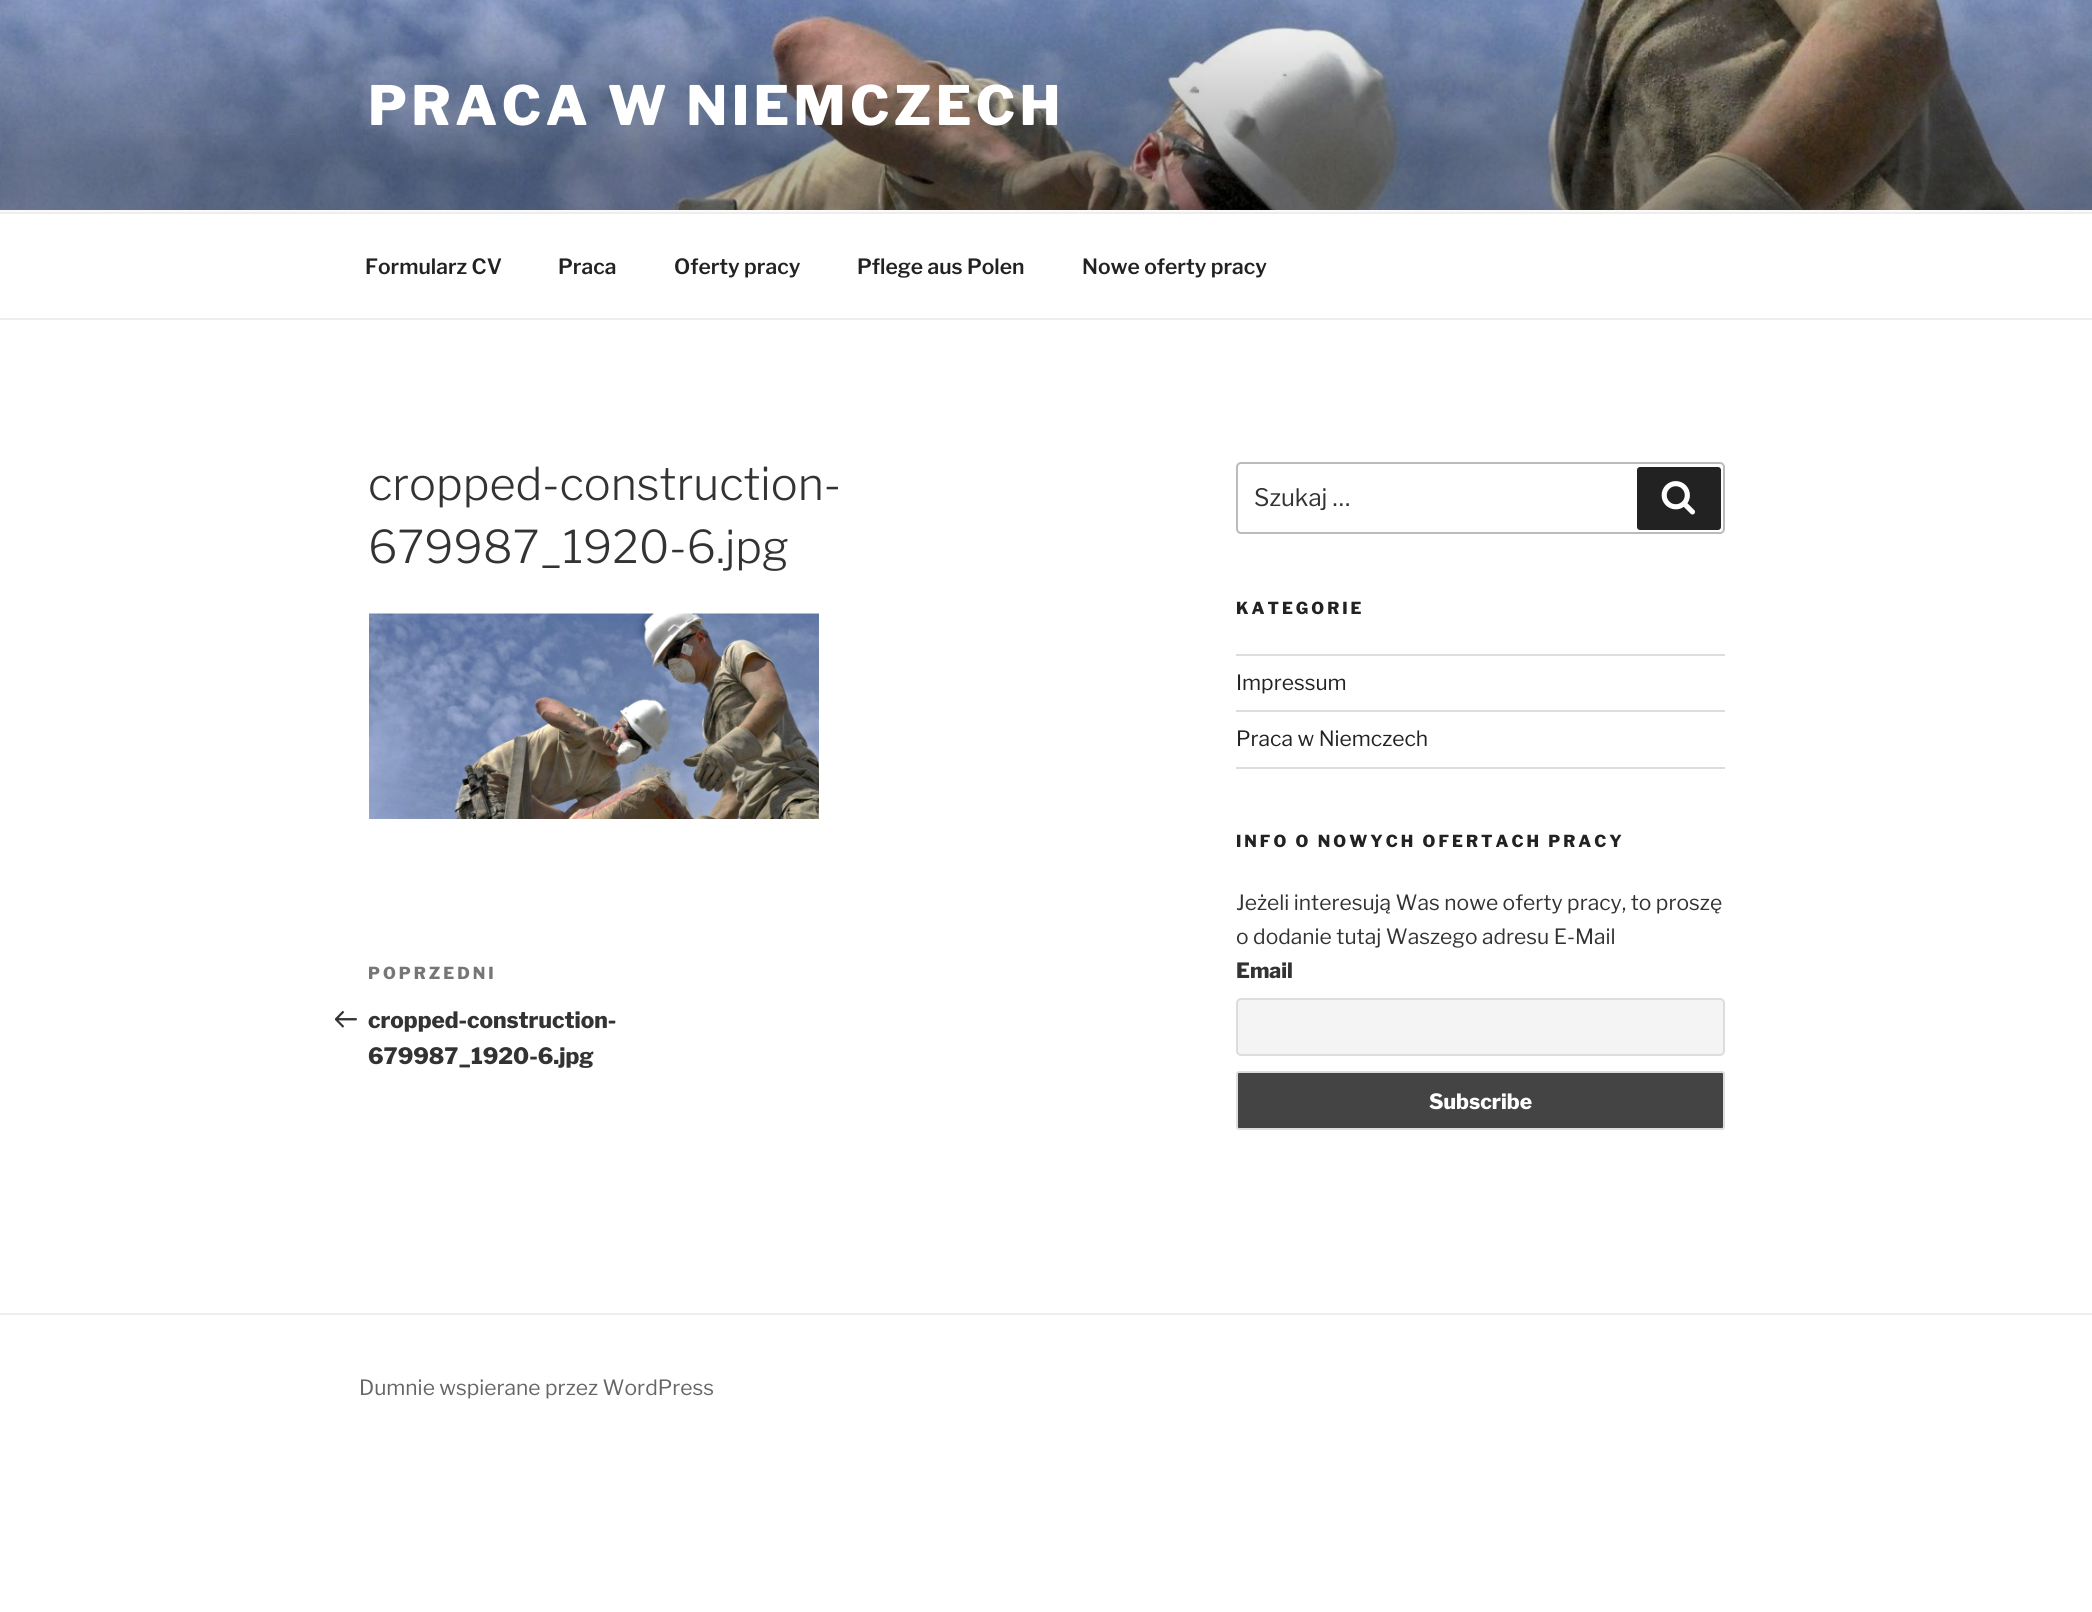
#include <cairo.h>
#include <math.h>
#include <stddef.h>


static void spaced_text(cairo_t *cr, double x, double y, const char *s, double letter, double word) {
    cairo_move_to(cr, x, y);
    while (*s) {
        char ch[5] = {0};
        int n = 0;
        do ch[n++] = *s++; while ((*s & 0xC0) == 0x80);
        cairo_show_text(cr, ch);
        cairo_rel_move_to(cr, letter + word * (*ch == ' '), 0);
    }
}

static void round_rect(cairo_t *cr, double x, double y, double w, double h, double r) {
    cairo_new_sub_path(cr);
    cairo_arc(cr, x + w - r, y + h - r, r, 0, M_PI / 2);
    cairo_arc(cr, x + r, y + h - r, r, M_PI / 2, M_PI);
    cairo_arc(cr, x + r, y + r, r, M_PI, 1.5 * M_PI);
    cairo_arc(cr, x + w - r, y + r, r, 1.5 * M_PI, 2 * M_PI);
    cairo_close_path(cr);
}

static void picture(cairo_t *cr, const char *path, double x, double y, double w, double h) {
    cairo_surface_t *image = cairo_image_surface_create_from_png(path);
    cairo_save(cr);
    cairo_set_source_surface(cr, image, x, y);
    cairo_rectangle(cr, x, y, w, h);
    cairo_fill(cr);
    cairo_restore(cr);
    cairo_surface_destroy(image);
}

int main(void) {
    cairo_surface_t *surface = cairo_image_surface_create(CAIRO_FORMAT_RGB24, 2092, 1612);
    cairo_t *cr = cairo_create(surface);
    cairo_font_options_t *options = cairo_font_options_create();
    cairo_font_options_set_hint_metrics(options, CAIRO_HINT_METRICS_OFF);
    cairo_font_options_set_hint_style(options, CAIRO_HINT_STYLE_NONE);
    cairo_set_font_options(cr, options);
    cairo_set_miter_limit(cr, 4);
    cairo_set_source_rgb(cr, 1, 1, 1);
    cairo_paint(cr);
    cairo_set_source_rgb(cr, 0.98, 0.98, 0.98);
    cairo_rectangle(cr, 0, 210, 2092, 2);
    cairo_fill(cr);
    picture(cr, "img1.png", 0, 0, 2092, 210);
    cairo_select_font_face(cr, "Libre Franklin ExtraBold", CAIRO_FONT_SLANT_NORMAL, CAIRO_FONT_WEIGHT_NORMAL);
    cairo_set_font_size(cr, 54);
    cairo_set_source_rgb(cr, 1, 1, 1);
    spaced_text(cr, 368, 125, "PRACA W NIEMCZECH", 4.3, 0);
    cairo_set_source_rgb(cr, 0.933, 0.933, 0.933);
    cairo_rectangle(cr, 0, 212, 2092, 2);
    cairo_fill(cr);
    cairo_rectangle(cr, 0, 318, 2092, 2);
    cairo_fill(cr);
    cairo_select_font_face(cr, "Libre Franklin SemiBold", CAIRO_FONT_SLANT_NORMAL, CAIRO_FONT_WEIGHT_NORMAL);
    cairo_set_font_size(cr, 21);
    cairo_set_source_rgb(cr, 0.133, 0.133, 0.133);
    cairo_move_to(cr, 365, 274);
    cairo_show_text(cr, "Formularz CV");
    cairo_move_to(cr, 558, 274);
    cairo_show_text(cr, "Praca");
    cairo_move_to(cr, 674, 274);
    cairo_show_text(cr, "Oferty pracy");
    cairo_move_to(cr, 857, 274);
    cairo_show_text(cr, "Pflege aus Polen");
    cairo_move_to(cr, 1082, 274);
    cairo_show_text(cr, "Nowe oferty pracy");
    cairo_select_font_face(cr, "Libre Franklin Light", CAIRO_FONT_SLANT_NORMAL, CAIRO_FONT_WEIGHT_NORMAL);
    cairo_set_font_size(cr, 45);
    cairo_set_source_rgb(cr, 0.2, 0.2, 0.2);
    cairo_move_to(cr, 368, 500);
    cairo_show_text(cr, "cropped-construction-");
    cairo_move_to(cr, 368, 563);
    cairo_show_text(cr, "679987_1920-6.jpg");
    picture(cr, "img2.png", 369, 613, 450, 206);
    cairo_select_font_face(cr, "Libre Franklin ExtraBold", CAIRO_FONT_SLANT_NORMAL, CAIRO_FONT_WEIGHT_NORMAL);
    cairo_set_font_size(cr, 16.5);
    cairo_set_source_rgb(cr, 0.463, 0.463, 0.463);
    spaced_text(cr, 368, 979, "POPRZEDNI", 3, 0);
    picture(cr, "img3.png", 335, 1010, 22, 18);
    cairo_set_font_size(cr, 22.5);
    cairo_set_source_rgb(cr, 0.2, 0.2, 0.2);
    cairo_move_to(cr, 368, 1028);
    cairo_show_text(cr, "cropped-construction-");
    cairo_move_to(cr, 368, 1064);
    cairo_show_text(cr, "679987_1920-6.jpg");
    round_rect(cr, 1237, 463, 487, 70, 4);
    cairo_set_source_rgb(cr, 0.733, 0.733, 0.733);
    cairo_stroke(cr);
    cairo_select_font_face(cr, "Libre Franklin", CAIRO_FONT_SLANT_NORMAL, CAIRO_FONT_WEIGHT_NORMAL);
    cairo_set_font_size(cr, 24);
    cairo_set_source_rgb(cr, 0.2, 0.2, 0.2);
    cairo_move_to(cr, 1254, 506);
    cairo_show_text(cr, "Szukaj …");
    cairo_set_source_rgb(cr, 0.133, 0.133, 0.133);
    round_rect(cr, 1637, 467, 84, 63, 3);
    cairo_fill(cr);
    picture(cr, "img4.png", 1661, 481, 34, 34);
    cairo_select_font_face(cr, "Libre Franklin ExtraBold", CAIRO_FONT_SLANT_NORMAL, CAIRO_FONT_WEIGHT_NORMAL);
    cairo_set_font_size(cr, 16.5);
    spaced_text(cr, 1236, 614, "KATEGORIE", 3, 0);
    cairo_set_source_rgb(cr, 0.867, 0.867, 0.867);
    cairo_rectangle(cr, 1236, 654, 489, 2);
    cairo_fill(cr);
    cairo_rectangle(cr, 1236, 710, 489, 2);
    cairo_fill(cr);
    cairo_select_font_face(cr, "Libre Franklin", CAIRO_FONT_SLANT_NORMAL, CAIRO_FONT_WEIGHT_NORMAL);
    cairo_set_font_size(cr, 21);
    cairo_set_source_rgb(cr, 0.133, 0.133, 0.133);
    cairo_move_to(cr, 1236, 690);
    cairo_show_text(cr, "Impressum");
    cairo_set_source_rgb(cr, 0.867, 0.867, 0.867);
    cairo_rectangle(cr, 1236, 767, 489, 2);
    cairo_fill(cr);
    cairo_set_source_rgb(cr, 0.133, 0.133, 0.133);
    cairo_move_to(cr, 1236, 746);
    cairo_show_text(cr, "Praca w Niemczech");
    cairo_select_font_face(cr, "Libre Franklin ExtraBold", CAIRO_FONT_SLANT_NORMAL, CAIRO_FONT_WEIGHT_NORMAL);
    cairo_set_font_size(cr, 16.5);
    spaced_text(cr, 1236, 847, "INFO O NOWYCH OFERTACH PRACY", 3, 0);
    cairo_select_font_face(cr, "Libre Franklin", CAIRO_FONT_SLANT_NORMAL, CAIRO_FONT_WEIGHT_NORMAL);
    cairo_set_font_size(cr, 21);
    cairo_set_source_rgb(cr, 0.2, 0.2, 0.2);
    cairo_move_to(cr, 1236, 910);
    cairo_show_text(cr, "Jeżeli interesują Was nowe oferty pracy, to proszę");
    cairo_move_to(cr, 1236, 944);
    cairo_show_text(cr, "o dodanie tutaj Waszego adresu E-Mail");
    cairo_select_font_face(cr, "Libre Franklin ExtraBold", CAIRO_FONT_SLANT_NORMAL, CAIRO_FONT_WEIGHT_NORMAL);
    cairo_move_to(cr, 1236, 978);
    cairo_show_text(cr, "Email");
    cairo_set_source_rgb(cr, 0.957, 0.957, 0.957);
    round_rect(cr, 1237, 999, 487, 56, 4);
    cairo_fill_preserve(cr);
    cairo_set_source_rgb(cr, 0.867, 0.867, 0.867);
    cairo_stroke(cr);
    cairo_set_source_rgb(cr, 0.267, 0.267, 0.267);
    round_rect(cr, 1237, 1072, 487, 57, 2);
    cairo_fill_preserve(cr);
    cairo_set_source_rgb(cr, 0.867, 0.867, 0.867);
    cairo_stroke(cr);
    cairo_set_source_rgb(cr, 1, 1, 1);
    cairo_move_to(cr, 1429, 1109);
    cairo_show_text(cr, "Subscribe");
    cairo_set_source_rgb(cr, 0.933, 0.933, 0.933);
    cairo_rectangle(cr, 0, 1313, 2092, 2);
    cairo_fill(cr);
    cairo_select_font_face(cr, "Libre Franklin", CAIRO_FONT_SLANT_NORMAL, CAIRO_FONT_WEIGHT_NORMAL);
    cairo_set_source_rgb(cr, 0.4, 0.4, 0.4);
    cairo_move_to(cr, 359, 1395);
    cairo_show_text(cr, "Dumnie wspierane przez WordPress");
    cairo_surface_write_to_png(surface, "page.png");
    cairo_font_options_destroy(options);
    cairo_destroy(cr);
    cairo_surface_destroy(surface);
    return 0;
}
